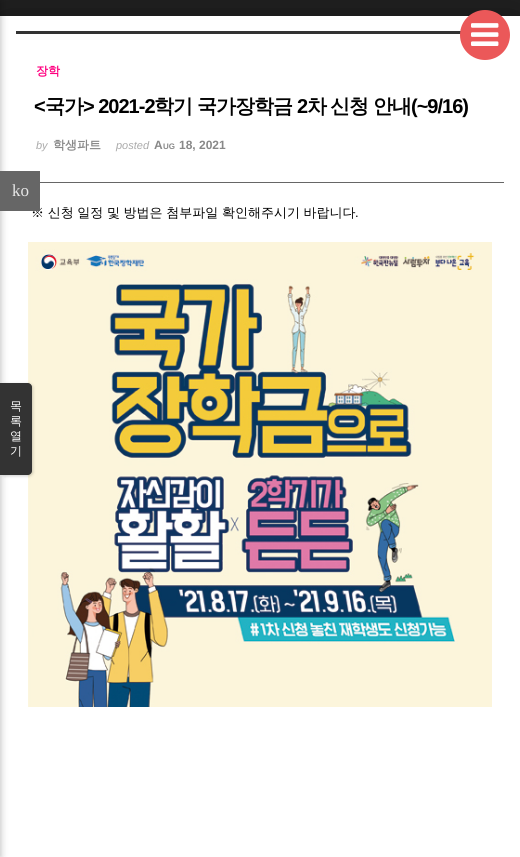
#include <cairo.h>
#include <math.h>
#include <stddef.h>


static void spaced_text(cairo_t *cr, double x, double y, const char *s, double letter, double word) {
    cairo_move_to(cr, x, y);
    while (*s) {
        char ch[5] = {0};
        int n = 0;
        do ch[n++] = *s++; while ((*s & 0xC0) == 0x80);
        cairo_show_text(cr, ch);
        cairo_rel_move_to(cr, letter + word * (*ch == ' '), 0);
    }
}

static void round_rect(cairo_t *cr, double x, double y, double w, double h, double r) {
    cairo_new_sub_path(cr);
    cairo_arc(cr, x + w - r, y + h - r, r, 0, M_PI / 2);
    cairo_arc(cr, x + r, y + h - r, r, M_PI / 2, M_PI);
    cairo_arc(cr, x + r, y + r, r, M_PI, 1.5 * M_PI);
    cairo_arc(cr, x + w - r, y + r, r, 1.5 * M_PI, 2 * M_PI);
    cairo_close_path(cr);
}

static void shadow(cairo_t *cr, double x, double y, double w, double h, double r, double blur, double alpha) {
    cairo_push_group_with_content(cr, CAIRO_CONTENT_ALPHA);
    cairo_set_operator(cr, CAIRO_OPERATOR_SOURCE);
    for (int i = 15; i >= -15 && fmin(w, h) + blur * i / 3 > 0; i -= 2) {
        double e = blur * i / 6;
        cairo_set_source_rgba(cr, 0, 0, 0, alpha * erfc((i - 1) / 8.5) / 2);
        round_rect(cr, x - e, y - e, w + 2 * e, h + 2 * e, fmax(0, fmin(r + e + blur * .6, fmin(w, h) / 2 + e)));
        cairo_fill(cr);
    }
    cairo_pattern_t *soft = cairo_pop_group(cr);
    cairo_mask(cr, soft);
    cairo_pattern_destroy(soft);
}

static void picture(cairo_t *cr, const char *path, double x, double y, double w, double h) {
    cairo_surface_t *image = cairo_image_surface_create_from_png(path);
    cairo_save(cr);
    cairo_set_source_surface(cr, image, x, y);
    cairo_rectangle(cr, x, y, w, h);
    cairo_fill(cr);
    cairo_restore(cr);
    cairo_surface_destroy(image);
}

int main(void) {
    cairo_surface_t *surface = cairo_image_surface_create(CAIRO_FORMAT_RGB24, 520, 857);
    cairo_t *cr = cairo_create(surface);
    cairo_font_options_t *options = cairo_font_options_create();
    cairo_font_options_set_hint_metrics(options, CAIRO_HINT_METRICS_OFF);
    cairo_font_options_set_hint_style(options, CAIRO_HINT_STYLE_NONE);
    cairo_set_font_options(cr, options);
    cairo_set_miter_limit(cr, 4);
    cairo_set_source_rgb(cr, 0.133, 0.133, 0.133);
    cairo_paint(cr);
    cairo_set_source_rgb(cr, 0, 0, 0);
    shadow(cr, 0, 20, 520, 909, 0, 24, 0.5);
    cairo_set_source_rgb(cr, 1, 1, 1);
    cairo_rectangle(cr, 0, 16, 520, 841);
    cairo_fill(cr);
    cairo_set_source_rgb(cr, 0.2, 0.2, 0.2);
    cairo_rectangle(cr, 16, 31, 445, 3);
    cairo_fill(cr);
    cairo_set_source_rgb(cr, 0.918, 0.345, 0.349);
    cairo_arc(cr, 485, 35, 25, 0, 2 * M_PI);
    cairo_fill(cr);
    picture(cr, "img1.png", 471, 23, 28, 23);
    cairo_set_source_rgb(cr, 0.4, 0.4, 0.4);
    cairo_rectangle(cr, 40, 182, 464, 1);
    cairo_fill(cr);
    cairo_select_font_face(cr, "WenQuanYi Zen Hei", CAIRO_FONT_SLANT_NORMAL, CAIRO_FONT_WEIGHT_BOLD);
    cairo_set_font_size(cr, 12);
    cairo_set_source_rgb(cr, 1, 0, 0.498);
    cairo_move_to(cr, 36, 75);
    cairo_show_text(cr, "장학");
    cairo_select_font_face(cr, "Liberation Sans", CAIRO_FONT_SLANT_NORMAL, CAIRO_FONT_WEIGHT_BOLD);
    cairo_set_font_size(cr, 20);
    cairo_set_source_rgb(cr, 0, 0, 0);
    spaced_text(cr, 34, 113, "<", -1, 0);
    cairo_select_font_face(cr, "WenQuanYi Zen Hei", CAIRO_FONT_SLANT_NORMAL, CAIRO_FONT_WEIGHT_BOLD);
    spaced_text(cr, 45, 113, "국가", -1, 0);
    cairo_select_font_face(cr, "Liberation Sans", CAIRO_FONT_SLANT_NORMAL, CAIRO_FONT_WEIGHT_BOLD);
    spaced_text(cr, 83, 113, "> 2021-2", -1, 0);
    cairo_select_font_face(cr, "WenQuanYi Zen Hei", CAIRO_FONT_SLANT_NORMAL, CAIRO_FONT_WEIGHT_BOLD);
    spaced_text(cr, 154, 113, "학기", -1, 0);
    spaced_text(cr, 197, 113, "국가장학금", -1, 0);
    cairo_select_font_face(cr, "Liberation Sans", CAIRO_FONT_SLANT_NORMAL, CAIRO_FONT_WEIGHT_BOLD);
    spaced_text(cr, 297, 113, "2", -1, 0);
    cairo_select_font_face(cr, "WenQuanYi Zen Hei", CAIRO_FONT_SLANT_NORMAL, CAIRO_FONT_WEIGHT_BOLD);
    spaced_text(cr, 307, 113, "차", -1, 0);
    spaced_text(cr, 330, 113, "신청", -1, 0);
    spaced_text(cr, 373, 113, "안내", -1, 0);
    cairo_select_font_face(cr, "Liberation Sans", CAIRO_FONT_SLANT_NORMAL, CAIRO_FONT_WEIGHT_BOLD);
    spaced_text(cr, 411, 113, "(~9/16)", -1, 0);
    cairo_select_font_face(cr, "Liberation Sans", CAIRO_FONT_SLANT_ITALIC, CAIRO_FONT_WEIGHT_NORMAL);
    cairo_set_font_size(cr, 11);
    cairo_set_source_rgb(cr, 0.667, 0.667, 0.667);
    cairo_move_to(cr, 36, 149);
    cairo_show_text(cr, "by");
    cairo_select_font_face(cr, "WenQuanYi Zen Hei", CAIRO_FONT_SLANT_NORMAL, CAIRO_FONT_WEIGHT_BOLD);
    cairo_set_font_size(cr, 12);
    cairo_set_source_rgb(cr, 0.533, 0.533, 0.533);
    cairo_move_to(cr, 53, 149);
    cairo_show_text(cr, "학생파트");
    cairo_select_font_face(cr, "Liberation Sans", CAIRO_FONT_SLANT_ITALIC, CAIRO_FONT_WEIGHT_NORMAL);
    cairo_set_font_size(cr, 11);
    cairo_set_source_rgb(cr, 0.667, 0.667, 0.667);
    cairo_move_to(cr, 116, 149);
    cairo_show_text(cr, "posted");
    cairo_select_font_face(cr, "Liberation Sans", CAIRO_FONT_SLANT_NORMAL, CAIRO_FONT_WEIGHT_BOLD);
    cairo_set_font_size(cr, 12);
    cairo_set_source_rgb(cr, 0.533, 0.533, 0.533);
    cairo_move_to(cr, 154, 149);
    cairo_show_text(cr, "A");
    cairo_set_font_size(cr, 8);
    cairo_move_to(cr, 163, 149);
    cairo_show_text(cr, "UG");
    cairo_set_font_size(cr, 12);
    cairo_move_to(cr, 179, 149);
    cairo_show_text(cr, "18, 2021");
    cairo_select_font_face(cr, "WenQuanYi Zen Hei Medium", CAIRO_FONT_SLANT_NORMAL, CAIRO_FONT_WEIGHT_NORMAL);
    cairo_set_font_size(cr, 13);
    cairo_set_source_rgb(cr, 0, 0, 0);
    spaced_text(cr, 31, 217, "※ 신청 일정 및 방법은 첨부파일 확인해주시기 바랍니다", 0, -0.25);
    cairo_select_font_face(cr, "Liberation Sans", CAIRO_FONT_SLANT_NORMAL, CAIRO_FONT_WEIGHT_NORMAL);
    cairo_move_to(cr, 355, 217);
    cairo_show_text(cr, ".");
    picture(cr, "img2.png", 28, 242, 464, 465);
    cairo_set_source_rgb(cr, 0, 0, 0);
    shadow(cr, -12, 0, 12, 857, 0, 4, 0.3);
    shadow(cr, 1, 384, 32, 92, 4, 1.5, 0.2);
    cairo_set_source_rgb(cr, 0.2, 0.2, 0.2);
    cairo_new_path(cr);
    cairo_move_to(cr, 0, 383);
    cairo_line_to(cr, 28, 383);
    cairo_curve_to(cr, 30, 383, 32, 385, 32, 387);
    cairo_line_to(cr, 32, 471);
    cairo_curve_to(cr, 32, 473, 30, 475, 28, 475);
    cairo_line_to(cr, 0, 475);
    cairo_close_path(cr);
    cairo_fill(cr);
    cairo_select_font_face(cr, "WenQuanYi Zen Hei Medium", CAIRO_FONT_SLANT_NORMAL, CAIRO_FONT_WEIGHT_NORMAL);
    cairo_set_font_size(cr, 12);
    cairo_set_source_rgb(cr, 1, 1, 1);
    cairo_move_to(cr, 10, 410);
    cairo_show_text(cr, "목");
    cairo_move_to(cr, 10, 425);
    cairo_show_text(cr, "록");
    cairo_move_to(cr, 10, 440);
    cairo_show_text(cr, "열");
    cairo_move_to(cr, 10, 455);
    cairo_show_text(cr, "기");
    cairo_set_source_rgb(cr, 0.4, 0.4, 0.4);
    cairo_rectangle(cr, 0, 171, 40, 40);
    cairo_fill(cr);
    cairo_select_font_face(cr, "Liberation Serif", CAIRO_FONT_SLANT_NORMAL, CAIRO_FONT_WEIGHT_NORMAL);
    cairo_set_font_size(cr, 17);
    cairo_set_source_rgb(cr, 0.906, 0.906, 0.906);
    cairo_move_to(cr, 12, 196);
    cairo_show_text(cr, "ko");
    cairo_surface_write_to_png(surface, "page.png");
    cairo_font_options_destroy(options);
    cairo_destroy(cr);
    cairo_surface_destroy(surface);
    return 0;
}
